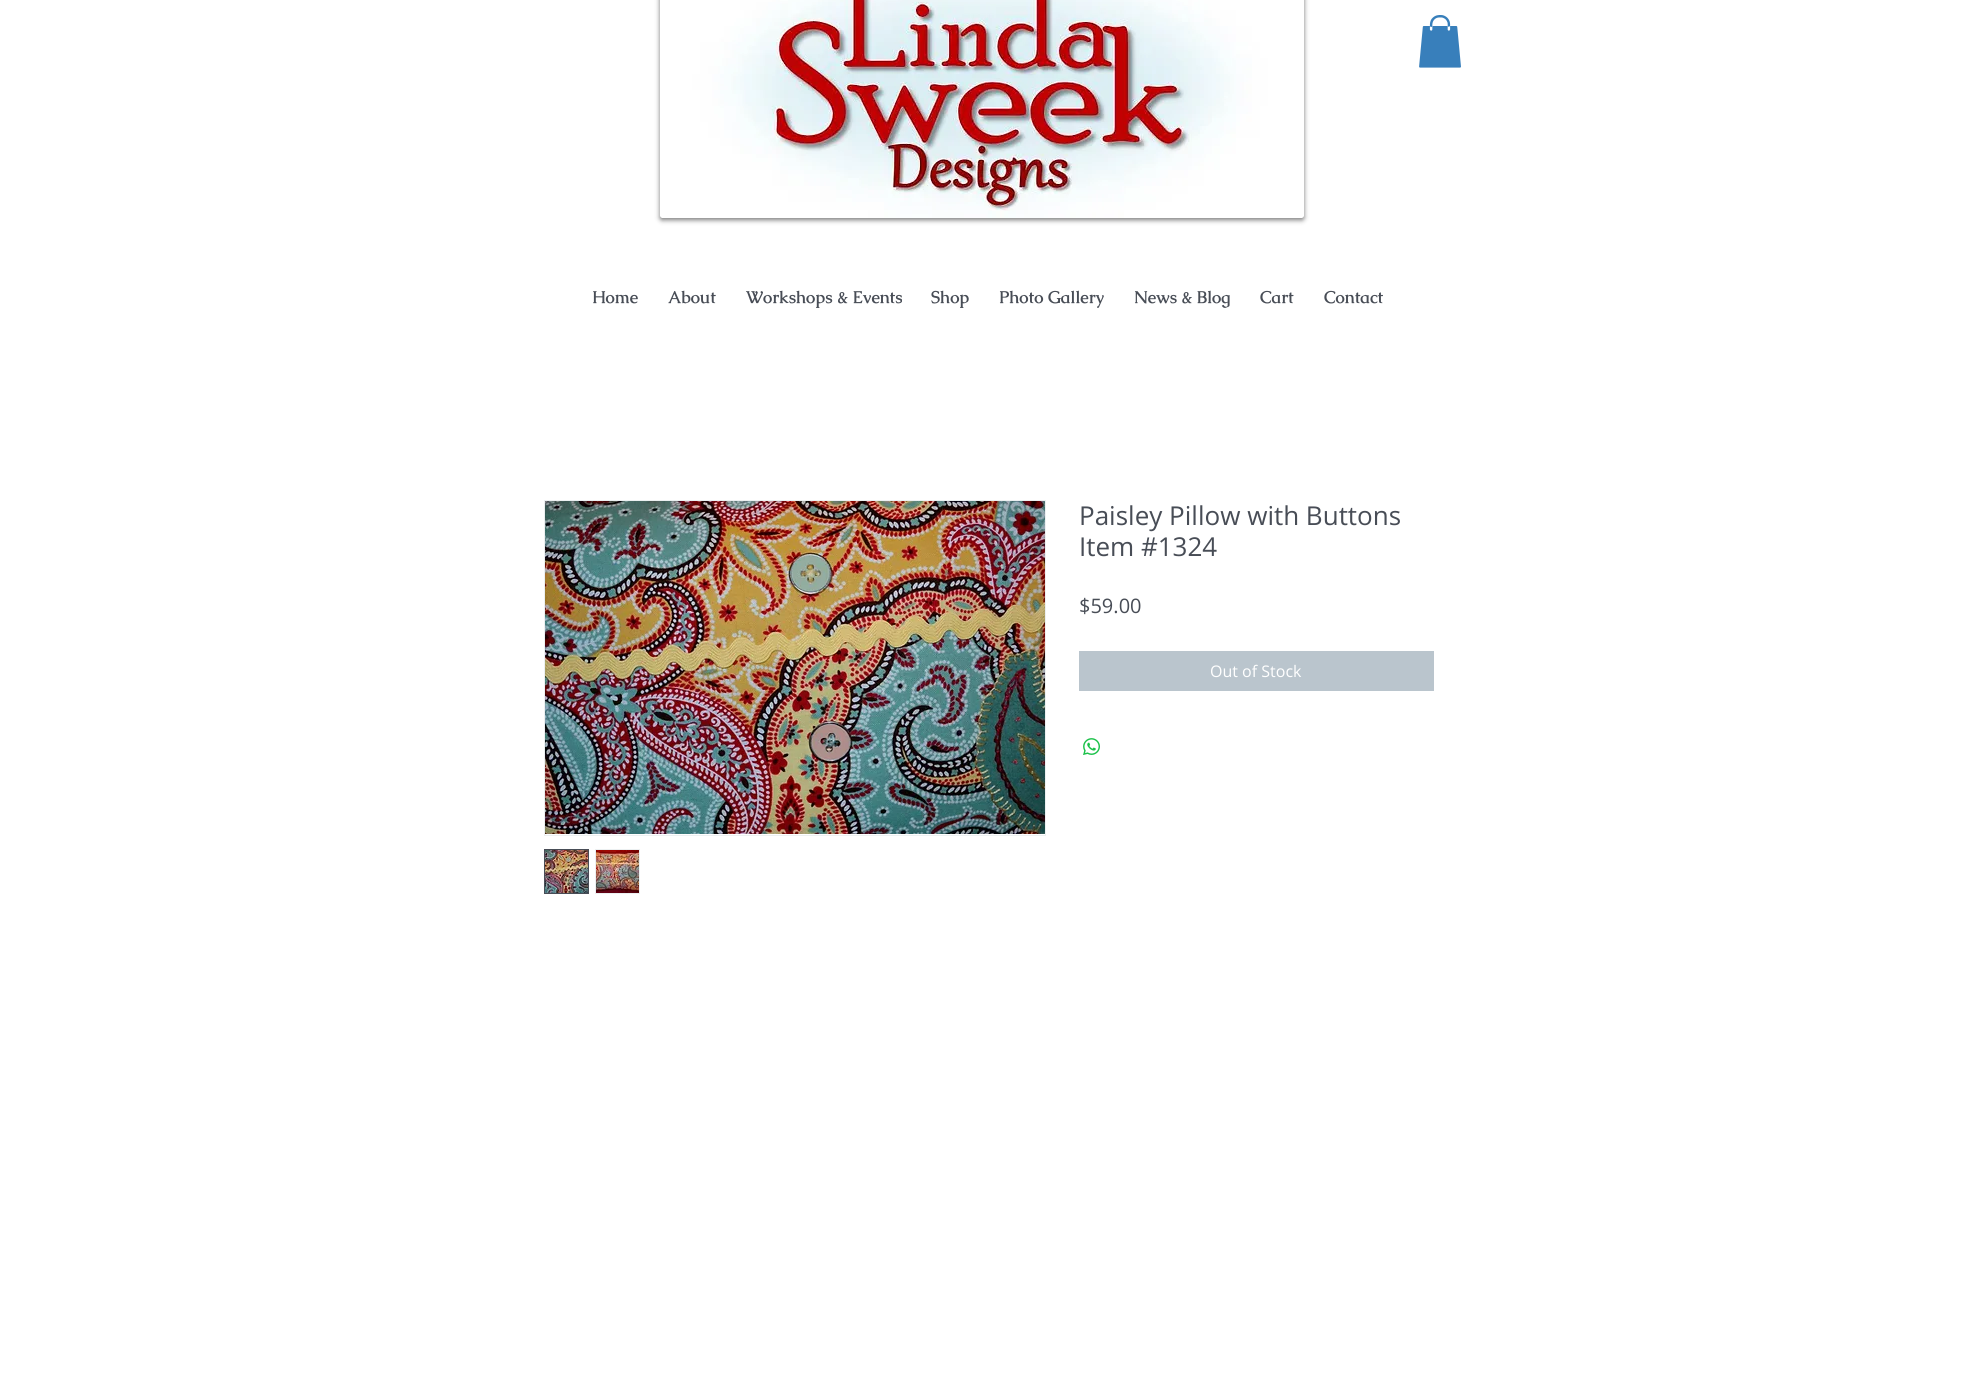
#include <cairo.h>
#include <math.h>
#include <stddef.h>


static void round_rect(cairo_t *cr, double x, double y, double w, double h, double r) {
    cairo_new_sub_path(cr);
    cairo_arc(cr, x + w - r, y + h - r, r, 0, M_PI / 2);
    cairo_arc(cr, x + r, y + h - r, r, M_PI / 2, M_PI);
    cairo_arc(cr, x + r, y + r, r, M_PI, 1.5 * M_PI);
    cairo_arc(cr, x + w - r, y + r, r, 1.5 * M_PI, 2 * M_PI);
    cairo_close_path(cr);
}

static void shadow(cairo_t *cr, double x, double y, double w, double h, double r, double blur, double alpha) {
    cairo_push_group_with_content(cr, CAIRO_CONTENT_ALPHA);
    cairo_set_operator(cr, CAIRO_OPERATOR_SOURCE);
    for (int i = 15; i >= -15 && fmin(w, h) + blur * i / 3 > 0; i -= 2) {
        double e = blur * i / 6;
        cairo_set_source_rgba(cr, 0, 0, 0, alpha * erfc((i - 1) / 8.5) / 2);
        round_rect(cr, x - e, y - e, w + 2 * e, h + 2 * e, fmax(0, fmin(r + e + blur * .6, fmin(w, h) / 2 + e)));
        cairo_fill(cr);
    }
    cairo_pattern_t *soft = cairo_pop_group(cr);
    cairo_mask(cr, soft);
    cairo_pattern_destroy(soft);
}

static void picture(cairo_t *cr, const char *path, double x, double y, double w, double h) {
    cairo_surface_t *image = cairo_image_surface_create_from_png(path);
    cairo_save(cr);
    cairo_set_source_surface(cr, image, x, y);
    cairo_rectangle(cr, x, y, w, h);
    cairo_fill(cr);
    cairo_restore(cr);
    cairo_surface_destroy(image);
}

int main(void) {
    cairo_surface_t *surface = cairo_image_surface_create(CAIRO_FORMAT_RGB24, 1976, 1381);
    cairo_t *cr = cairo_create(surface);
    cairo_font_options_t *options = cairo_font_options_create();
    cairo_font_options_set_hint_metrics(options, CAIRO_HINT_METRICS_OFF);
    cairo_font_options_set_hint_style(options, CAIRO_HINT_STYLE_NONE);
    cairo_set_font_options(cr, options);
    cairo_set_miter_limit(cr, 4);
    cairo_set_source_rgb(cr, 1, 1, 1);
    cairo_paint(cr);
    cairo_set_source_rgb(cr, 0, 0, 0);
    shadow(cr, 660, -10, 644, 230, 2, 2.5, 0.53);
    picture(cr, "img1.png", 660, 0, 644, 218);
    picture(cr, "img2.png", 1419, 15, 42, 53);
    cairo_select_font_face(cr, "Caudex", CAIRO_FONT_SLANT_NORMAL, CAIRO_FONT_WEIGHT_BOLD);
    cairo_set_font_size(cr, 17);
    cairo_set_source_rgb(cr, 0.282, 0.302, 0.337);
    cairo_move_to(cr, 592, 303);
    cairo_show_text(cr, "Home");
    cairo_move_to(cr, 668, 303);
    cairo_show_text(cr, "About");
    cairo_move_to(cr, 746, 303);
    cairo_show_text(cr, "Workshops & Events");
    cairo_move_to(cr, 931, 303);
    cairo_show_text(cr, "Shop");
    cairo_move_to(cr, 999, 303);
    cairo_show_text(cr, "Photo Gallery");
    cairo_move_to(cr, 1134, 303);
    cairo_show_text(cr, "News & Blog");
    cairo_move_to(cr, 1260, 303);
    cairo_show_text(cr, "Cart");
    cairo_move_to(cr, 1324, 303);
    cairo_show_text(cr, "Contact");
    cairo_rectangle(cr, 544.5, 500.5, 501, 335);
    cairo_set_source_rgb(cr, 0.925, 0.941, 0.945);
    cairo_set_line_width(cr, 1);
    cairo_stroke(cr);
    picture(cr, "img3.png", 545, 501, 500, 333);
    cairo_rectangle(cr, 544.5, 849.5, 44, 44);
    cairo_set_source_rgb(cr, 0.282, 0.302, 0.337);
    cairo_stroke(cr);
    picture(cr, "img4.png", 545, 850, 43, 43);
    cairo_set_source_rgb(cr, 0.925, 0.941, 0.945);
    cairo_rectangle(cr, 595, 849, 45, 45);
    cairo_fill(cr);
    picture(cr, "img5.png", 596, 850, 43, 43);
    cairo_select_font_face(cr, "Open Sans", CAIRO_FONT_SLANT_NORMAL, CAIRO_FONT_WEIGHT_NORMAL);
    cairo_set_font_size(cr, 26);
    cairo_set_source_rgb(cr, 0.282, 0.302, 0.337);
    cairo_move_to(cr, 1079, 525);
    cairo_show_text(cr, "Paisley Pillow with Buttons");
    cairo_move_to(cr, 1079, 556);
    cairo_show_text(cr, "Item #1324");
    cairo_set_font_size(cr, 20);
    cairo_move_to(cr, 1079, 613);
    cairo_show_text(cr, "$59.00");
    cairo_set_source_rgb(cr, 0.729, 0.773, 0.804);
    cairo_rectangle(cr, 1079, 651, 355, 40);
    cairo_fill(cr);
    cairo_set_font_size(cr, 16);
    cairo_set_source_rgb(cr, 1, 1, 1);
    cairo_move_to(cr, 1210, 677);
    cairo_show_text(cr, "Out of Stock");
    picture(cr, "img6.png", 1083, 738, 17, 17);
    cairo_surface_write_to_png(surface, "page.png");
    cairo_font_options_destroy(options);
    cairo_destroy(cr);
    cairo_surface_destroy(surface);
    return 0;
}
